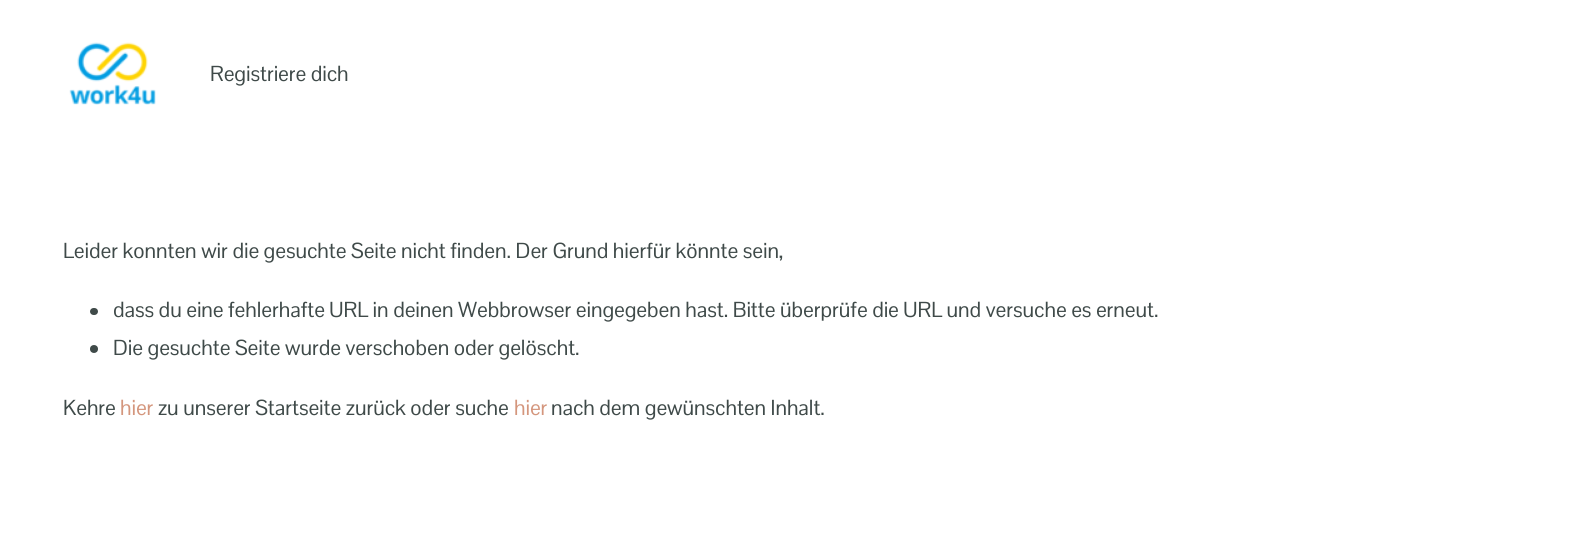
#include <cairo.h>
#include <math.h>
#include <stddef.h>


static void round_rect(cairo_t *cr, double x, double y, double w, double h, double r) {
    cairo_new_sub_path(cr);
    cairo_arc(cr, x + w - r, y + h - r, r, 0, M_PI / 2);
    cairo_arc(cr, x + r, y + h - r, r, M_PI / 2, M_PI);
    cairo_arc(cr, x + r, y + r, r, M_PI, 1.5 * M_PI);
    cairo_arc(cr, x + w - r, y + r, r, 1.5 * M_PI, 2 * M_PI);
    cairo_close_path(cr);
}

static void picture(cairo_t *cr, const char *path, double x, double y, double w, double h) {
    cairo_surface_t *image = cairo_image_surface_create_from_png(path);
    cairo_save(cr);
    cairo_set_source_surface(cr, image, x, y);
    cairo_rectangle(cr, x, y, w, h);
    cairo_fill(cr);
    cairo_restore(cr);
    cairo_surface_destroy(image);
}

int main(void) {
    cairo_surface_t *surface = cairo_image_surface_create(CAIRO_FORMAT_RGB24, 1573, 550);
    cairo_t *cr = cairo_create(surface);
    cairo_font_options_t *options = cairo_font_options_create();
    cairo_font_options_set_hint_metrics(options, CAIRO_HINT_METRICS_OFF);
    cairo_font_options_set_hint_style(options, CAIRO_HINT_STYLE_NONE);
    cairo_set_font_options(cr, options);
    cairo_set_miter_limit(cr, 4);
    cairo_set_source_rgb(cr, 1, 1, 1);
    cairo_paint(cr);
    picture(cr, "img1.png", 69, 42, 87, 63);
    cairo_select_font_face(cr, "Pontano Sans", CAIRO_FONT_SLANT_NORMAL, CAIRO_FONT_WEIGHT_NORMAL);
    cairo_set_font_size(cr, 21.25);
    cairo_set_source_rgb(cr, 0.247, 0.29, 0.286);
    cairo_move_to(cr, 210, 81);
    cairo_show_text(cr, "Registriere dich");
    cairo_move_to(cr, 63, 258);
    cairo_show_text(cr, "Leider konnten wir die gesuchte Seite nicht finden. Der Grund hierfür könnte sein,");
    round_rect(cr, 90, 308, 8, 7, 3.5);
    cairo_fill(cr);
    cairo_move_to(cr, 113, 317);
    cairo_show_text(cr, "dass du eine fehlerhafte URL in deinen Webbrowser eingegeben hast. Bitte überprüfe die URL und versuche es erneut.");
    cairo_new_path(cr);
    cairo_arc(cr, 94, 349, 4, 0, 2 * M_PI);
    cairo_fill(cr);
    cairo_move_to(cr, 113, 355);
    cairo_show_text(cr, "Die gesuchte Seite wurde verschoben oder gelöscht.");
    cairo_move_to(cr, 63, 415);
    cairo_show_text(cr, "Kehre");
    cairo_set_source_rgb(cr, 0.831, 0.588, 0.49);
    cairo_move_to(cr, 120, 415);
    cairo_show_text(cr, "hier");
    cairo_set_source_rgb(cr, 0.247, 0.29, 0.286);
    cairo_move_to(cr, 158, 415);
    cairo_show_text(cr, "zu unserer Startseite zurück oder suche");
    cairo_set_source_rgb(cr, 0.831, 0.588, 0.49);
    cairo_move_to(cr, 514, 415);
    cairo_show_text(cr, "hier");
    cairo_set_source_rgb(cr, 0.247, 0.29, 0.286);
    cairo_move_to(cr, 551, 415);
    cairo_show_text(cr, "nach dem gewünschten Inhalt.");
    cairo_surface_write_to_png(surface, "page.png");
    cairo_font_options_destroy(options);
    cairo_destroy(cr);
    cairo_surface_destroy(surface);
    return 0;
}
